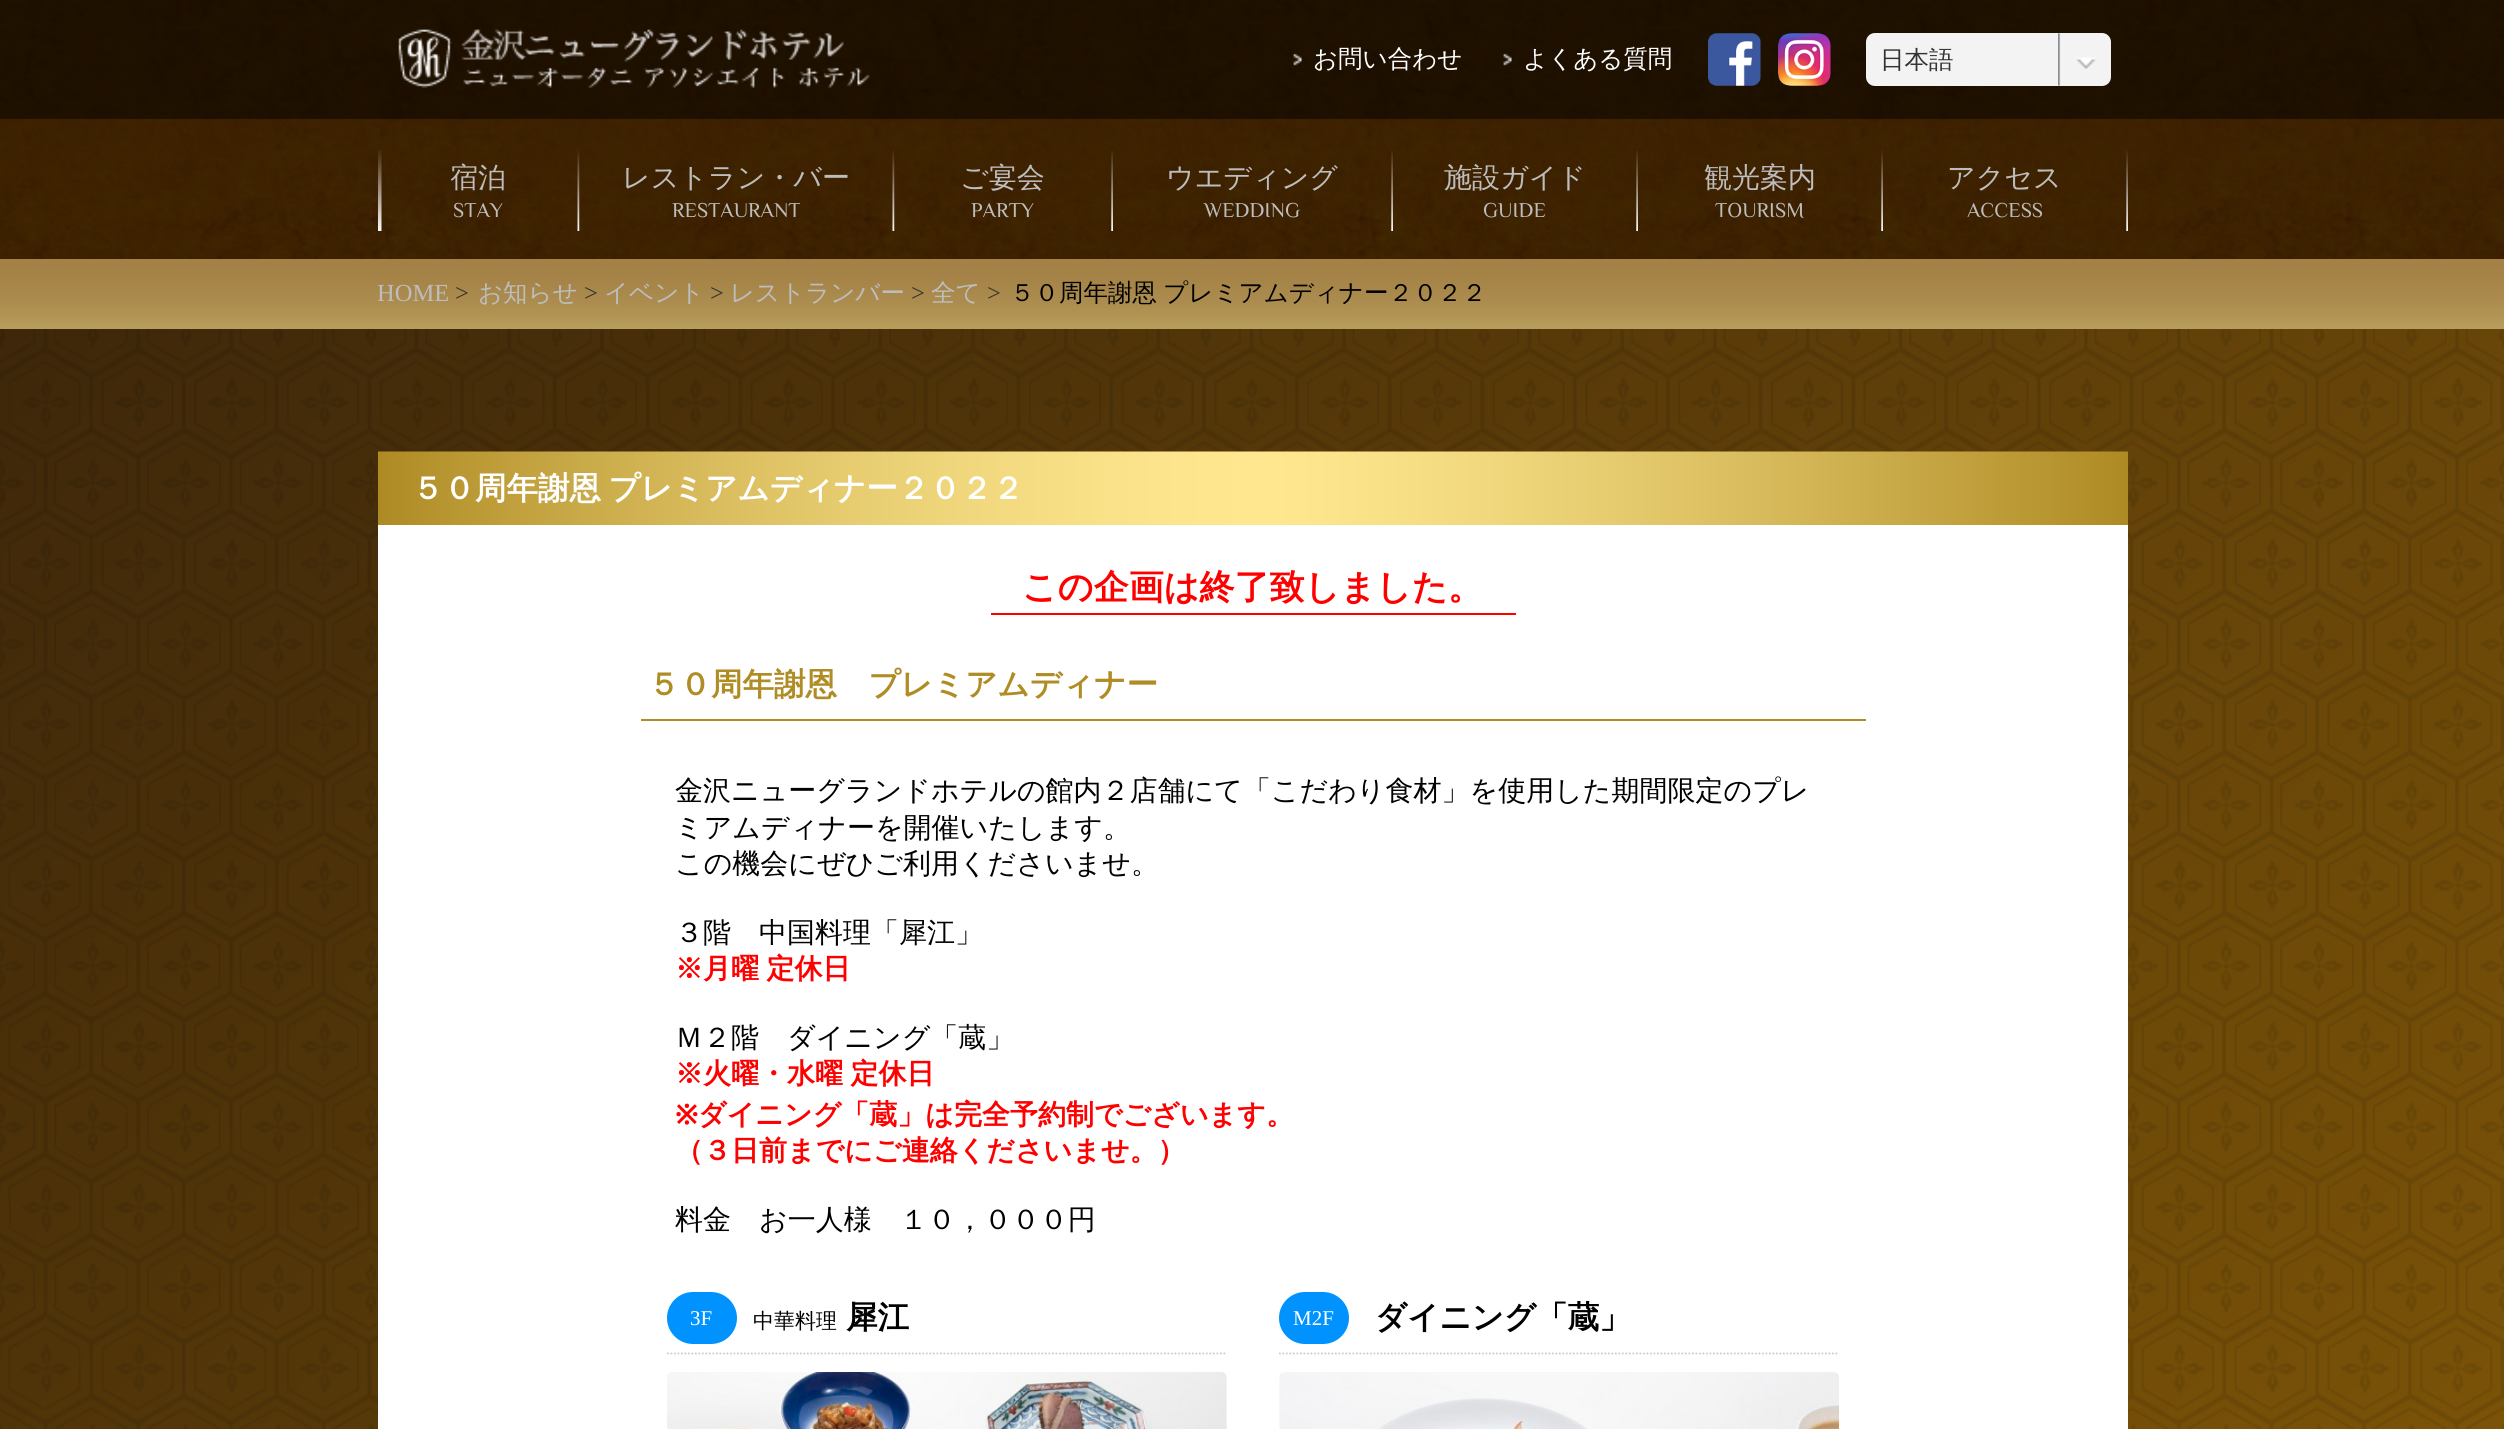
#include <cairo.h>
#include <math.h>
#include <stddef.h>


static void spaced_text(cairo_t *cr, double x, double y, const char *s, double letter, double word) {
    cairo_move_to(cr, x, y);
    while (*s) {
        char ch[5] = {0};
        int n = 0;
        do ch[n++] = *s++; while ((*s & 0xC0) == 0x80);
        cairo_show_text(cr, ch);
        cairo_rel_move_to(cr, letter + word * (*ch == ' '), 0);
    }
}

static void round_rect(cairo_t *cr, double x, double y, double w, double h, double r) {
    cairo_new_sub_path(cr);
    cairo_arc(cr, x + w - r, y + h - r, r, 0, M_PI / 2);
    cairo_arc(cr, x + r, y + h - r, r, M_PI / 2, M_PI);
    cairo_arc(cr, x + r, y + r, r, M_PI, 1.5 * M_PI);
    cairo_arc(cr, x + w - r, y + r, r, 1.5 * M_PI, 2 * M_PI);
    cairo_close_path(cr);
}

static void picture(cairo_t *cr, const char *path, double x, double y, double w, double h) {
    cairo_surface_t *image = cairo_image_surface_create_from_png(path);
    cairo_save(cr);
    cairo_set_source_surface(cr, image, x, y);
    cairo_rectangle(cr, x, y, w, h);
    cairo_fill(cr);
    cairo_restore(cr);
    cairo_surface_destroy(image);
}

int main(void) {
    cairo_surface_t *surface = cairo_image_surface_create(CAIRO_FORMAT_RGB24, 2504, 1429);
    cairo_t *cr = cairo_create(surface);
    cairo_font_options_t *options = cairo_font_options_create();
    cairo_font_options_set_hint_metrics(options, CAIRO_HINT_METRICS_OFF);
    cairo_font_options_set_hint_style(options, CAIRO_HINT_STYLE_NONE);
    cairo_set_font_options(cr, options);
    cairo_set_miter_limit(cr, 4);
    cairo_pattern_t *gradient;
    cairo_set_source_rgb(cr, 1, 1, 1);
    cairo_paint(cr);
    gradient = cairo_pattern_create_linear(-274, 274, 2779, 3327);
    cairo_pattern_add_color_stop_rgba(gradient, 0, 0.22, 0.137, 0.039, 1);
    cairo_pattern_add_color_stop_rgba(gradient, 0.7, 0.502, 0.341, 0.031, 1);
    cairo_set_source(cr, gradient);
    cairo_pattern_destroy(gradient);
    cairo_rectangle(cr, 0, 329, 2504, 1100);
    cairo_fill(cr);
    picture(cr, "img1.png", 0, 329, 2504, 1100);
    picture(cr, "img2.png", 0, 0, 2504, 259);
    cairo_set_source_rgba(cr, 0, 0, 0, 0.5);
    cairo_rectangle(cr, 0, 0, 2504, 119);
    cairo_fill(cr);
    picture(cr, "img3.png", 398, 29, 472, 59);
    picture(cr, "img4.png", 1293, 53, 9, 13);
    cairo_select_font_face(cr, "WenQuanYi Zen Hei Medium", CAIRO_FONT_SLANT_NORMAL, CAIRO_FONT_WEIGHT_NORMAL);
    cairo_set_font_size(cr, 24.5);
    cairo_set_source_rgb(cr, 1, 1, 1);
    cairo_move_to(cr, 1313, 67);
    cairo_show_text(cr, "お問い合わせ");
    picture(cr, "img5.png", 1503, 53, 9, 13);
    cairo_move_to(cr, 1523, 67);
    cairo_show_text(cr, "よくある質問");
    picture(cr, "img6.png", 1708, 33, 53, 53);
    picture(cr, "img7.png", 1778, 33, 53, 53);
    cairo_set_source_rgb(cr, 0.953, 0.953, 0.953);
    round_rect(cr, 1866, 33, 245, 53, 9);
    cairo_fill(cr);
    picture(cr, "img8.png", 2058, 33, 38, 53);
    cairo_set_source_rgb(cr, 0.2, 0.2, 0.2);
    cairo_move_to(cr, 1880, 68);
    cairo_show_text(cr, "日本語");
    picture(cr, "img9.png", 378, 150, 4, 81);
    picture(cr, "img10.png", 577, 150, 3, 81);
    cairo_set_font_size(cr, 28);
    cairo_set_source_rgb(cr, 0.741, 0.741, 0.741);
    cairo_move_to(cr, 450, 187);
    cairo_show_text(cr, "宿泊");
    cairo_select_font_face(cr, "Philosopher", CAIRO_FONT_SLANT_NORMAL, CAIRO_FONT_WEIGHT_NORMAL);
    cairo_set_font_size(cr, 21);
    cairo_move_to(cr, 453, 217);
    cairo_show_text(cr, "STAY");
    picture(cr, "img11.png", 892, 150, 3, 81);
    cairo_select_font_face(cr, "WenQuanYi Zen Hei Medium", CAIRO_FONT_SLANT_NORMAL, CAIRO_FONT_WEIGHT_NORMAL);
    cairo_set_font_size(cr, 28);
    cairo_move_to(cr, 622, 187);
    cairo_show_text(cr, "レストラン・バー");
    cairo_select_font_face(cr, "Philosopher", CAIRO_FONT_SLANT_NORMAL, CAIRO_FONT_WEIGHT_NORMAL);
    cairo_set_font_size(cr, 21);
    cairo_move_to(cr, 672, 217);
    cairo_show_text(cr, "RESTAURANT");
    picture(cr, "img12.png", 1111, 150, 2, 81);
    cairo_select_font_face(cr, "WenQuanYi Zen Hei Medium", CAIRO_FONT_SLANT_NORMAL, CAIRO_FONT_WEIGHT_NORMAL);
    cairo_set_font_size(cr, 28);
    cairo_move_to(cr, 960, 187);
    cairo_show_text(cr, "ご宴会");
    cairo_select_font_face(cr, "Philosopher", CAIRO_FONT_SLANT_NORMAL, CAIRO_FONT_WEIGHT_NORMAL);
    cairo_set_font_size(cr, 21);
    cairo_move_to(cr, 971, 217);
    cairo_show_text(cr, "PARTY");
    picture(cr, "img13.png", 1391, 150, 2, 81);
    cairo_select_font_face(cr, "WenQuanYi Zen Hei Medium", CAIRO_FONT_SLANT_NORMAL, CAIRO_FONT_WEIGHT_NORMAL);
    cairo_set_font_size(cr, 28);
    cairo_move_to(cr, 1166, 187);
    cairo_show_text(cr, "ウエディング");
    cairo_select_font_face(cr, "Philosopher", CAIRO_FONT_SLANT_NORMAL, CAIRO_FONT_WEIGHT_NORMAL);
    cairo_set_font_size(cr, 21);
    cairo_move_to(cr, 1204, 217);
    cairo_show_text(cr, "WEDDING");
    picture(cr, "img14.png", 1636, 150, 2, 81);
    cairo_select_font_face(cr, "WenQuanYi Zen Hei Medium", CAIRO_FONT_SLANT_NORMAL, CAIRO_FONT_WEIGHT_NORMAL);
    cairo_set_font_size(cr, 28);
    cairo_move_to(cr, 1444, 187);
    cairo_show_text(cr, "施設ガイド");
    cairo_select_font_face(cr, "Philosopher", CAIRO_FONT_SLANT_NORMAL, CAIRO_FONT_WEIGHT_NORMAL);
    cairo_set_font_size(cr, 21);
    cairo_move_to(cr, 1483, 217);
    cairo_show_text(cr, "GUIDE");
    picture(cr, "img15.png", 1881, 150, 2, 81);
    cairo_select_font_face(cr, "WenQuanYi Zen Hei Medium", CAIRO_FONT_SLANT_NORMAL, CAIRO_FONT_WEIGHT_NORMAL);
    cairo_set_font_size(cr, 28);
    cairo_move_to(cr, 1704, 187);
    cairo_show_text(cr, "観光案内");
    cairo_select_font_face(cr, "Philosopher", CAIRO_FONT_SLANT_NORMAL, CAIRO_FONT_WEIGHT_NORMAL);
    cairo_set_font_size(cr, 21);
    cairo_move_to(cr, 1715, 217);
    cairo_show_text(cr, "TOURISM");
    picture(cr, "img16.png", 2126, 150, 2, 81);
    cairo_select_font_face(cr, "WenQuanYi Zen Hei Medium", CAIRO_FONT_SLANT_NORMAL, CAIRO_FONT_WEIGHT_NORMAL);
    cairo_set_font_size(cr, 28);
    cairo_move_to(cr, 1947, 187);
    cairo_show_text(cr, "アクセス");
    cairo_select_font_face(cr, "Philosopher", CAIRO_FONT_SLANT_NORMAL, CAIRO_FONT_WEIGHT_NORMAL);
    cairo_set_font_size(cr, 21);
    cairo_move_to(cr, 1967, 217);
    cairo_show_text(cr, "ACCESS");
    picture(cr, "img17.png", 0, 259, 2504, 70);
    cairo_select_font_face(cr, "Liberation Serif", CAIRO_FONT_SLANT_NORMAL, CAIRO_FONT_WEIGHT_NORMAL);
    cairo_set_font_size(cr, 24.5);
    cairo_move_to(cr, 377, 301);
    cairo_show_text(cr, "HOME");
    cairo_set_source_rgb(cr, 0.2, 0.2, 0.2);
    cairo_move_to(cr, 455, 301);
    cairo_show_text(cr, ">");
    cairo_select_font_face(cr, "WenQuanYi Zen Hei Medium", CAIRO_FONT_SLANT_NORMAL, CAIRO_FONT_WEIGHT_NORMAL);
    cairo_set_source_rgb(cr, 0.741, 0.741, 0.741);
    cairo_move_to(cr, 478, 301);
    cairo_show_text(cr, "お知らせ");
    cairo_select_font_face(cr, "Liberation Serif", CAIRO_FONT_SLANT_NORMAL, CAIRO_FONT_WEIGHT_NORMAL);
    cairo_set_source_rgb(cr, 0.2, 0.2, 0.2);
    cairo_move_to(cr, 584, 301);
    cairo_show_text(cr, ">");
    cairo_select_font_face(cr, "WenQuanYi Zen Hei Medium", CAIRO_FONT_SLANT_NORMAL, CAIRO_FONT_WEIGHT_NORMAL);
    cairo_set_source_rgb(cr, 0.741, 0.741, 0.741);
    cairo_move_to(cr, 604, 301);
    cairo_show_text(cr, "イベント");
    cairo_select_font_face(cr, "Liberation Serif", CAIRO_FONT_SLANT_NORMAL, CAIRO_FONT_WEIGHT_NORMAL);
    cairo_set_source_rgb(cr, 0.2, 0.2, 0.2);
    cairo_move_to(cr, 710, 301);
    cairo_show_text(cr, ">");
    cairo_select_font_face(cr, "WenQuanYi Zen Hei Medium", CAIRO_FONT_SLANT_NORMAL, CAIRO_FONT_WEIGHT_NORMAL);
    cairo_set_source_rgb(cr, 0.741, 0.741, 0.741);
    cairo_move_to(cr, 730, 301);
    cairo_show_text(cr, "レストランバー");
    cairo_select_font_face(cr, "Liberation Serif", CAIRO_FONT_SLANT_NORMAL, CAIRO_FONT_WEIGHT_NORMAL);
    cairo_set_source_rgb(cr, 0.2, 0.2, 0.2);
    cairo_move_to(cr, 911, 301);
    cairo_show_text(cr, ">");
    cairo_select_font_face(cr, "WenQuanYi Zen Hei Medium", CAIRO_FONT_SLANT_NORMAL, CAIRO_FONT_WEIGHT_NORMAL);
    cairo_set_source_rgb(cr, 0.741, 0.741, 0.741);
    cairo_move_to(cr, 931, 301);
    cairo_show_text(cr, "全て");
    cairo_select_font_face(cr, "Liberation Serif", CAIRO_FONT_SLANT_NORMAL, CAIRO_FONT_WEIGHT_NORMAL);
    cairo_set_source_rgb(cr, 0.2, 0.2, 0.2);
    cairo_move_to(cr, 987, 301);
    cairo_show_text(cr, ">");
    cairo_select_font_face(cr, "WenQuanYi Zen Hei Medium", CAIRO_FONT_SLANT_NORMAL, CAIRO_FONT_WEIGHT_NORMAL);
    cairo_set_source_rgb(cr, 0, 0, 0);
    spaced_text(cr, 1010, 301, "５０周年謝恩 プレミアムディナー２０２２", 0, -1);
    picture(cr, "img18.png", 378, 451, 1750, 74);
    cairo_select_font_face(cr, "WenQuanYi Zen Hei", CAIRO_FONT_SLANT_NORMAL, CAIRO_FONT_WEIGHT_BOLD);
    cairo_set_font_size(cr, 31.5);
    cairo_set_source_rgb(cr, 1, 1, 1);
    spaced_text(cr, 412, 499, "５０周年謝恩 プレミアムディナー２０２２", 0, -2);
    cairo_rectangle(cr, 378, 525, 1750, 904);
    cairo_fill(cr);
    cairo_set_source_rgb(cr, 1, 0, 0);
    cairo_rectangle(cr, 991, 613, 525, 2);
    cairo_fill(cr);
    cairo_set_font_size(cr, 35);
    cairo_move_to(cr, 1022, 599);
    cairo_show_text(cr, "この企画は終了致しました。");
    cairo_set_source_rgb(cr, 0.69, 0.549, 0.145);
    cairo_rectangle(cr, 641, 719, 1225, 2);
    cairo_fill(cr);
    cairo_set_font_size(cr, 31.5);
    cairo_move_to(cr, 648, 695);
    cairo_show_text(cr, "５０周年謝恩　プレミアムディナー");
    cairo_select_font_face(cr, "WenQuanYi Zen Hei Medium", CAIRO_FONT_SLANT_NORMAL, CAIRO_FONT_WEIGHT_NORMAL);
    cairo_set_font_size(cr, 28);
    cairo_set_source_rgb(cr, 0, 0, 0);
    cairo_move_to(cr, 675, 800);
    cairo_show_text(cr, "金沢ニューグランドホテルの館内２店舗にて「こだわり食材」を使用した期間限定のプレ");
    cairo_move_to(cr, 675, 837);
    cairo_show_text(cr, "ミアムディナーを開催いたします。");
    cairo_move_to(cr, 675, 873);
    cairo_show_text(cr, "この機会にぜひご利用くださいませ。");
    cairo_move_to(cr, 675, 942);
    cairo_show_text(cr, "３階　中国料理「犀江」");
    cairo_select_font_face(cr, "WenQuanYi Zen Hei", CAIRO_FONT_SLANT_NORMAL, CAIRO_FONT_WEIGHT_BOLD);
    cairo_set_source_rgb(cr, 1, 0, 0);
    spaced_text(cr, 675, 978, "※月曜 定休日", 0, -1);
    cairo_select_font_face(cr, "WenQuanYi Zen Hei Medium", CAIRO_FONT_SLANT_NORMAL, CAIRO_FONT_WEIGHT_NORMAL);
    cairo_set_source_rgb(cr, 0, 0, 0);
    cairo_move_to(cr, 675, 1047);
    cairo_show_text(cr, "Ｍ２階　ダイニング「蔵」");
    cairo_select_font_face(cr, "WenQuanYi Zen Hei", CAIRO_FONT_SLANT_NORMAL, CAIRO_FONT_WEIGHT_BOLD);
    cairo_set_source_rgb(cr, 1, 0, 0);
    spaced_text(cr, 675, 1083, "※火曜・水曜 定休日", 0, -1);
    cairo_select_font_face(cr, "Noto Sans", CAIRO_FONT_SLANT_NORMAL, CAIRO_FONT_WEIGHT_BOLD);
    cairo_move_to(cr, 675, 1124);
    cairo_show_text(cr, "※");
    cairo_select_font_face(cr, "WenQuanYi Zen Hei", CAIRO_FONT_SLANT_NORMAL, CAIRO_FONT_WEIGHT_BOLD);
    cairo_move_to(cr, 698, 1124);
    cairo_show_text(cr, "ダイニング「蔵」は完全予約制でございます。");
    cairo_move_to(cr, 675, 1160);
    cairo_show_text(cr, "（３日前までにご連絡くださいませ。）");
    cairo_select_font_face(cr, "WenQuanYi Zen Hei Medium", CAIRO_FONT_SLANT_NORMAL, CAIRO_FONT_WEIGHT_NORMAL);
    cairo_set_source_rgb(cr, 0, 0, 0);
    cairo_move_to(cr, 675, 1229);
    cairo_show_text(cr, "料金　お一人様　１０，０００円");
    cairo_set_source_rgb(cr, 0, 0.576, 1);
    round_rect(cr, 667, 1292, 70, 52, 26);
    cairo_fill(cr);
    cairo_select_font_face(cr, "Liberation Serif", CAIRO_FONT_SLANT_NORMAL, CAIRO_FONT_WEIGHT_NORMAL);
    cairo_set_font_size(cr, 21);
    cairo_set_source_rgb(cr, 1, 1, 1);
    cairo_move_to(cr, 690, 1325);
    cairo_show_text(cr, "3F");
    cairo_new_path(cr);
    cairo_move_to(cr, 667, 1353.5);
    cairo_line_to(cr, 1227, 1353.5);
    cairo_set_source_rgb(cr, 0.8, 0.8, 0.8);
    cairo_set_line_width(cr, 1.8);
    cairo_set_dash(cr, (double[]){1.75, 1.75}, 2, 0);
    cairo_stroke(cr);
    cairo_select_font_face(cr, "WenQuanYi Zen Hei Medium", CAIRO_FONT_SLANT_NORMAL, CAIRO_FONT_WEIGHT_NORMAL);
    cairo_set_source_rgb(cr, 0, 0, 0);
    cairo_move_to(cr, 753, 1328);
    cairo_show_text(cr, "中華料理");
    cairo_select_font_face(cr, "WenQuanYi Zen Hei", CAIRO_FONT_SLANT_NORMAL, CAIRO_FONT_WEIGHT_BOLD);
    cairo_set_font_size(cr, 31.5);
    cairo_move_to(cr, 846, 1328);
    cairo_show_text(cr, "犀江");
    picture(cr, "img19.png", 667, 1372, 560, 57);
    cairo_set_source_rgb(cr, 0, 0.576, 1);
    round_rect(cr, 1279, 1292, 70, 52, 26);
    cairo_fill(cr);
    cairo_select_font_face(cr, "Liberation Serif", CAIRO_FONT_SLANT_NORMAL, CAIRO_FONT_WEIGHT_NORMAL);
    cairo_set_font_size(cr, 21);
    cairo_set_source_rgb(cr, 1, 1, 1);
    cairo_move_to(cr, 1293, 1325);
    cairo_show_text(cr, "M2F");
    cairo_new_path(cr);
    cairo_move_to(cr, 1279, 1353.5);
    cairo_line_to(cr, 1839, 1353.5);
    cairo_set_source_rgb(cr, 0.8, 0.8, 0.8);
    cairo_stroke(cr);
    cairo_select_font_face(cr, "WenQuanYi Zen Hei", CAIRO_FONT_SLANT_NORMAL, CAIRO_FONT_WEIGHT_BOLD);
    cairo_set_font_size(cr, 31.5);
    cairo_set_source_rgb(cr, 0, 0, 0);
    cairo_move_to(cr, 1375, 1328);
    cairo_show_text(cr, "ダイニング「蔵」");
    picture(cr, "img20.png", 1279, 1372, 561, 57);
    cairo_surface_write_to_png(surface, "page.png");
    cairo_font_options_destroy(options);
    cairo_destroy(cr);
    cairo_surface_destroy(surface);
    return 0;
}
